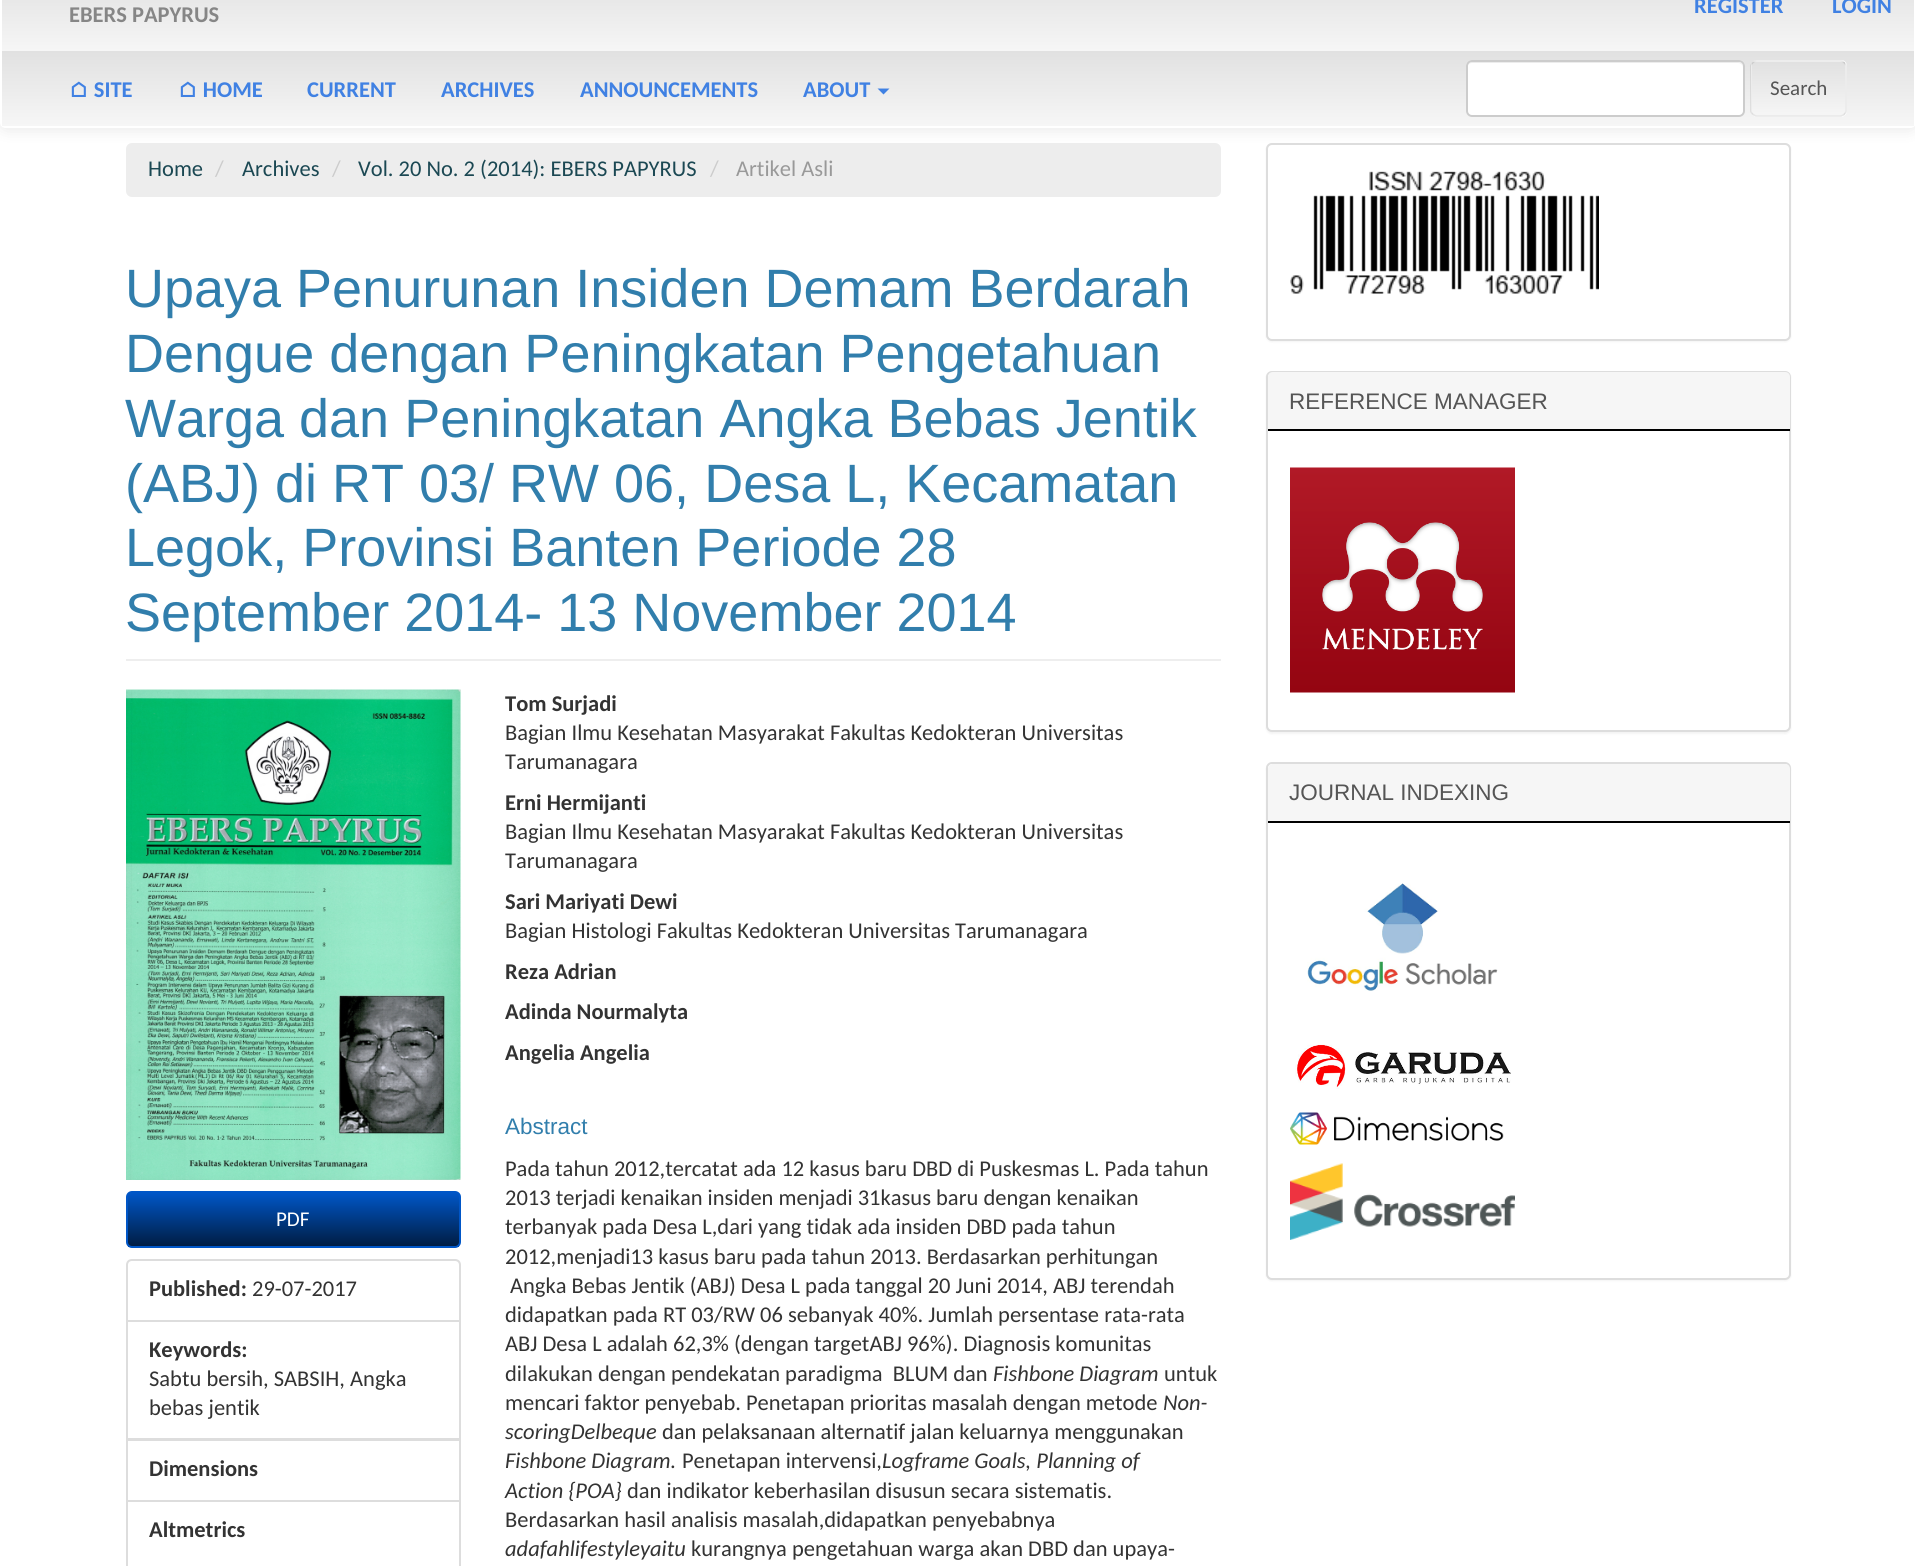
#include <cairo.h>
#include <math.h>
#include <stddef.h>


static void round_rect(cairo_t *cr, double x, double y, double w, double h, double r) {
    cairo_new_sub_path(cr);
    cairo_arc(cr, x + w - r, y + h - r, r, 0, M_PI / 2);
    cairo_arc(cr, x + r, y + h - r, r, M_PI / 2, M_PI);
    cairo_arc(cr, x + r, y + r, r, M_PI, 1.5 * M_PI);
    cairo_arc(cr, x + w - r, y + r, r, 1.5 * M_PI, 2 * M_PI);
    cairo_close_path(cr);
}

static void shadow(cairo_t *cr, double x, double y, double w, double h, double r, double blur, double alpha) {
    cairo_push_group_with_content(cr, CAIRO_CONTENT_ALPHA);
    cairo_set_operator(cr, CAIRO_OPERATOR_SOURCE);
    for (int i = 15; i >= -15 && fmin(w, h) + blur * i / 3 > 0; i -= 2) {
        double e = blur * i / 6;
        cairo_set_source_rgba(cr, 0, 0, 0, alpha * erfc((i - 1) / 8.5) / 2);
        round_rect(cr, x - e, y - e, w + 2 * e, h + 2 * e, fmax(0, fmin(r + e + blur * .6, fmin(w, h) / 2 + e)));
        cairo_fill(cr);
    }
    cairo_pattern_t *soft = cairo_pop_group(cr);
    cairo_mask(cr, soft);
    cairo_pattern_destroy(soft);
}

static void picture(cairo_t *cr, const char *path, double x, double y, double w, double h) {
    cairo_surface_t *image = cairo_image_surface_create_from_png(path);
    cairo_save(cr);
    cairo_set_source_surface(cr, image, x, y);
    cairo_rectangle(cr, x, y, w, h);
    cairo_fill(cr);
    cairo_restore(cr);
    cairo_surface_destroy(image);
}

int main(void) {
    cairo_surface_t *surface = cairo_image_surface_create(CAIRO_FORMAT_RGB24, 1915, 1566);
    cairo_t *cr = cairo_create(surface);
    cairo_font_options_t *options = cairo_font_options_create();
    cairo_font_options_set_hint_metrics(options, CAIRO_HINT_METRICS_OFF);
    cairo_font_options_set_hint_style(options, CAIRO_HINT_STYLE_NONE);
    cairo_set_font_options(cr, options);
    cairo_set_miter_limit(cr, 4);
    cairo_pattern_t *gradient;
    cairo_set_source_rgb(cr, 1, 1, 1);
    cairo_paint(cr);
    cairo_save(cr);
    cairo_set_fill_rule(cr, CAIRO_FILL_RULE_EVEN_ODD);
    cairo_new_path(cr);
    cairo_move_to(cr, 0, 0);
    cairo_line_to(cr, 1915, 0);
    cairo_line_to(cr, 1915, 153);
    cairo_line_to(cr, 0, 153);
    cairo_close_path(cr);
    cairo_move_to(cr, 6, -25);
    cairo_line_to(cr, 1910, -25);
    cairo_curve_to(cr, 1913.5, -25, 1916, -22.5, 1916, -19);
    cairo_line_to(cr, 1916, 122);
    cairo_curve_to(cr, 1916, 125.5, 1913.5, 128, 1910, 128);
    cairo_line_to(cr, 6, 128);
    cairo_curve_to(cr, 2.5, 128, 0, 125.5, 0, 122);
    cairo_line_to(cr, 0, -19);
    cairo_curve_to(cr, 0, -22.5, 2.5, -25, 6, -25);
    cairo_close_path(cr);
    cairo_clip(cr);
    cairo_set_source_rgb(cr, 0, 0, 0);
    shadow(cr, 0, -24, 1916, 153, 6, 7.5, 0.1);
    cairo_restore(cr);
    gradient = cairo_pattern_create_linear(958, -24, 958, 51);
    cairo_pattern_add_color_stop_rgba(gradient, 0, 0.882, 0.882, 0.882, 1);
    cairo_pattern_add_color_stop_rgba(gradient, 1, 0.965, 0.965, 0.965, 1);
    cairo_set_source(cr, gradient);
    cairo_pattern_destroy(gradient);
    cairo_rectangle(cr, 2, 0, 1912, 51);
    cairo_fill(cr);
    cairo_select_font_face(cr, "Carlito", CAIRO_FONT_SLANT_NORMAL, CAIRO_FONT_WEIGHT_BOLD);
    cairo_set_font_size(cr, 22.5);
    cairo_set_source_rgb(cr, 0.525, 0.525, 0.525);
    cairo_move_to(cr, 69, 22);
    cairo_show_text(cr, "EBERS PAPYRUS");
    cairo_set_source_rgb(cr, 0.251, 0.506, 0.89);
    cairo_move_to(cr, 1694, 13);
    cairo_show_text(cr, "REGISTER");
    cairo_move_to(cr, 1832, 13);
    cairo_show_text(cr, "LOGIN");
    gradient = cairo_pattern_create_linear(958, 51, 958, 126);
    cairo_pattern_add_color_stop_rgba(gradient, 0, 0.882, 0.882, 0.882, 1);
    cairo_pattern_add_color_stop_rgba(gradient, 1, 0.965, 0.965, 0.965, 1);
    cairo_set_source(cr, gradient);
    cairo_pattern_destroy(gradient);
    cairo_rectangle(cr, 2, 51, 1912, 75);
    cairo_fill(cr);
    cairo_set_source_rgb(cr, 0.251, 0.506, 0.89);
    cairo_move_to(cr, 69, 97);
    cairo_show_text(cr, "⌂ SITE");
    cairo_move_to(cr, 178, 97);
    cairo_show_text(cr, "⌂ HOME");
    cairo_move_to(cr, 307, 97);
    cairo_show_text(cr, "CURRENT");
    cairo_move_to(cr, 441, 97);
    cairo_show_text(cr, "ARCHIVES");
    cairo_move_to(cr, 580, 97);
    cairo_show_text(cr, "ANNOUNCEMENTS");
    cairo_move_to(cr, 803, 97);
    cairo_show_text(cr, "ABOUT");
    cairo_new_path(cr);
    cairo_move_to(cr, 877.5, 88.5);
    cairo_line_to(cr, 889.5, 88.5);
    cairo_line_to(cr, 883.5, 94.5);
    cairo_close_path(cr);
    cairo_fill(cr);
    cairo_set_source_rgb(cr, 1, 1, 1);
    round_rect(cr, 1466, 60, 279, 57, 6);
    cairo_fill(cr);
    cairo_set_source_rgb(cr, 0.925, 0.925, 0.925);
    cairo_new_path(cr);
    cairo_move_to(cr, 1472, 63);
    cairo_line_to(cr, 1738, 63);
    cairo_curve_to(cr, 1741, 63, 1743, 65, 1743, 68);
    cairo_line_to(cr, 1743, 67);
    cairo_curve_to(cr, 1743, 64, 1741, 62, 1738, 62);
    cairo_line_to(cr, 1472, 62);
    cairo_curve_to(cr, 1469, 62, 1467, 64, 1467, 67);
    cairo_line_to(cr, 1467, 68);
    cairo_curve_to(cr, 1467, 65, 1469, 63, 1472, 63);
    cairo_close_path(cr);
    cairo_fill(cr);
    round_rect(cr, 1467, 61, 277, 55, 5);
    cairo_set_source_rgb(cr, 0.8, 0.8, 0.8);
    cairo_stroke(cr);
    cairo_set_source_rgb(cr, 1, 1, 1);
    round_rect(cr, 1751, 60, 96, 57, 6);
    cairo_fill(cr);
    cairo_save(cr);
    round_rect(cr, 1751, 60, 96, 57, 6);
    cairo_clip(cr);
    gradient = cairo_pattern_create_linear(1799, 62, 1799, 116);
    cairo_pattern_add_color_stop_rgba(gradient, 0, 0.882, 0.882, 0.882, 1);
    cairo_pattern_add_color_stop_rgba(gradient, 1, 0.965, 0.965, 0.965, 1);
    cairo_set_source(cr, gradient);
    cairo_pattern_destroy(gradient);
    cairo_rectangle(cr, 1752, 62, 93, 54);
    cairo_fill(cr);
    cairo_restore(cr);
    cairo_new_path(cr);
    cairo_move_to(cr, 1844, 114.5);
    cairo_line_to(cr, 1841, 116);
    cairo_line_to(cr, 1756, 116);
    cairo_line_to(cr, 1753, 114.5);
    cairo_set_source_rgb(cr, 0.902, 0.902, 0.902);
    cairo_set_line_width(cr, 1.5);
    cairo_stroke(cr);
    cairo_new_path(cr);
    cairo_move_to(cr, 1753, 114.5);
    cairo_curve_to(cr, 1752, 113.5, 1751, 112.5, 1751, 111);
    cairo_line_to(cr, 1751, 66);
    cairo_curve_to(cr, 1751, 64.5, 1752, 63.5, 1753, 62.5);
    cairo_curve_to(cr, 1754, 61.5, 1755, 61, 1756.5, 61);
    cairo_line_to(cr, 1840.5, 61);
    cairo_curve_to(cr, 1842, 61, 1843, 61.5, 1844, 62.5);
    cairo_curve_to(cr, 1845, 63.5, 1846, 64.5, 1846, 66);
    cairo_line_to(cr, 1846, 111);
    cairo_curve_to(cr, 1846, 112.5, 1845, 113.5, 1844, 114.5);
    cairo_set_source_rgba(cr, 0, 0, 0, 0.1);
    cairo_stroke(cr);
    cairo_select_font_face(cr, "Carlito", CAIRO_FONT_SLANT_NORMAL, CAIRO_FONT_WEIGHT_NORMAL);
    cairo_set_font_size(cr, 21);
    cairo_set_source_rgb(cr, 0.333, 0.333, 0.333);
    cairo_move_to(cr, 1770, 95);
    cairo_show_text(cr, "Search");
    cairo_set_source_rgb(cr, 0.929, 0.929, 0.929);
    round_rect(cr, 126, 143, 1095, 54, 6);
    cairo_fill(cr);
    cairo_set_font_size(cr, 22.5);
    cairo_set_source_rgb(cr, 0.106, 0.282, 0.325);
    cairo_move_to(cr, 148, 176);
    cairo_show_text(cr, "Home");
    cairo_set_source_rgb(cr, 0.8, 0.8, 0.8);
    cairo_move_to(cr, 215, 176);
    cairo_show_text(cr, "/");
    cairo_set_source_rgb(cr, 0.106, 0.282, 0.325);
    cairo_move_to(cr, 242, 176);
    cairo_show_text(cr, "Archives");
    cairo_set_source_rgb(cr, 0.8, 0.8, 0.8);
    cairo_move_to(cr, 332, 176);
    cairo_show_text(cr, "/");
    cairo_set_source_rgb(cr, 0.106, 0.282, 0.325);
    cairo_move_to(cr, 358, 176);
    cairo_show_text(cr, "Vol. 20 No. 2 (2014): EBERS PAPYRUS");
    cairo_set_source_rgb(cr, 0.8, 0.8, 0.8);
    cairo_move_to(cr, 710, 176);
    cairo_show_text(cr, "/");
    cairo_set_source_rgb(cr, 0.6, 0.6, 0.6);
    cairo_move_to(cr, 736, 176);
    cairo_show_text(cr, "Artikel Asli");
    cairo_set_source_rgb(cr, 0.933, 0.933, 0.933);
    cairo_rectangle(cr, 126, 659, 1095, 2);
    cairo_fill(cr);
    cairo_select_font_face(cr, "Liberation Sans", CAIRO_FONT_SLANT_NORMAL, CAIRO_FONT_WEIGHT_NORMAL);
    cairo_set_font_size(cr, 54);
    cairo_set_source_rgb(cr, 0.192, 0.494, 0.675);
    cairo_move_to(cr, 125, 307);
    cairo_show_text(cr, "Upaya Penurunan Insiden Demam Berdarah");
    cairo_move_to(cr, 125, 372);
    cairo_show_text(cr, "Dengue dengan Peningkatan Pengetahuan");
    cairo_move_to(cr, 125, 437);
    cairo_show_text(cr, "Warga dan Peningkatan Angka Bebas Jentik");
    cairo_move_to(cr, 125, 502);
    cairo_show_text(cr, "(ABJ) di RT 03/ RW 06, Desa L, Kecamatan");
    cairo_move_to(cr, 125, 566);
    cairo_show_text(cr, "Legok, Provinsi Banten Periode 28");
    cairo_move_to(cr, 125, 631);
    cairo_show_text(cr, "September 2014- 13 November 2014");
    picture(cr, "img1.png", 126, 689, 335, 491);
    gradient = cairo_pattern_create_linear(293, 1193, 293, 1247);
    cairo_pattern_add_color_stop_rgba(gradient, 0, 0, 0.337, 0.78, 1);
    cairo_pattern_add_color_stop_rgba(gradient, 1, 0, 0.11, 0.255, 1);
    cairo_set_source(cr, gradient);
    cairo_pattern_destroy(gradient);
    cairo_rectangle(cr, 128, 1193, 331, 54);
    cairo_fill(cr);
    round_rect(cr, 127, 1192, 333, 55, 5);
    cairo_set_source_rgb(cr, 0, 0.337, 0.78);
    cairo_set_line_width(cr, 2);
    cairo_stroke(cr);
    cairo_select_font_face(cr, "Carlito", CAIRO_FONT_SLANT_NORMAL, CAIRO_FONT_WEIGHT_NORMAL);
    cairo_set_font_size(cr, 21);
    cairo_set_source_rgb(cr, 1, 1, 1);
    cairo_move_to(cr, 276, 1226);
    cairo_show_text(cr, "PDF");
    cairo_new_path(cr);
    cairo_move_to(cr, 132, 1260);
    cairo_line_to(cr, 455, 1260);
    cairo_curve_to(cr, 458, 1260, 460, 1262, 460, 1265);
    cairo_line_to(cr, 460, 1321);
    cairo_line_to(cr, 127, 1321);
    cairo_line_to(cr, 127, 1265);
    cairo_curve_to(cr, 127, 1262, 129, 1260, 132, 1260);
    cairo_close_path(cr);
    cairo_set_source_rgb(cr, 0.867, 0.867, 0.867);
    cairo_stroke(cr);
    cairo_select_font_face(cr, "Carlito", CAIRO_FONT_SLANT_NORMAL, CAIRO_FONT_WEIGHT_BOLD);
    cairo_set_font_size(cr, 22.5);
    cairo_set_source_rgb(cr, 0.2, 0.2, 0.2);
    cairo_move_to(cr, 149, 1296);
    cairo_show_text(cr, "Published:");
    cairo_select_font_face(cr, "Carlito", CAIRO_FONT_SLANT_NORMAL, CAIRO_FONT_WEIGHT_NORMAL);
    cairo_move_to(cr, 252, 1296);
    cairo_show_text(cr, "29-07-2017");
    cairo_rectangle(cr, 127, 1321, 333, 118);
    cairo_set_source_rgb(cr, 0.867, 0.867, 0.867);
    cairo_stroke(cr);
    cairo_select_font_face(cr, "Carlito", CAIRO_FONT_SLANT_NORMAL, CAIRO_FONT_WEIGHT_BOLD);
    cairo_set_source_rgb(cr, 0.2, 0.2, 0.2);
    cairo_move_to(cr, 149, 1357);
    cairo_show_text(cr, "Keywords:");
    cairo_select_font_face(cr, "Carlito", CAIRO_FONT_SLANT_NORMAL, CAIRO_FONT_WEIGHT_NORMAL);
    cairo_move_to(cr, 149, 1386);
    cairo_show_text(cr, "Sabtu bersih, SABSIH, Angka");
    cairo_move_to(cr, 149, 1415);
    cairo_show_text(cr, "bebas jentik");
    cairo_rectangle(cr, 127, 1440, 333, 61);
    cairo_set_source_rgb(cr, 0.867, 0.867, 0.867);
    cairo_stroke(cr);
    cairo_select_font_face(cr, "Carlito", CAIRO_FONT_SLANT_NORMAL, CAIRO_FONT_WEIGHT_BOLD);
    cairo_set_source_rgb(cr, 0.2, 0.2, 0.2);
    cairo_move_to(cr, 149, 1476);
    cairo_show_text(cr, "Dimensions");
    cairo_rectangle(cr, 127, 1501, 333, 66);
    cairo_set_source_rgb(cr, 0.867, 0.867, 0.867);
    cairo_stroke(cr);
    cairo_set_source_rgb(cr, 0.2, 0.2, 0.2);
    cairo_move_to(cr, 149, 1537);
    cairo_show_text(cr, "Altmetrics");
    cairo_move_to(cr, 505, 711);
    cairo_show_text(cr, "Tom Surjadi");
    cairo_select_font_face(cr, "Carlito", CAIRO_FONT_SLANT_NORMAL, CAIRO_FONT_WEIGHT_NORMAL);
    cairo_move_to(cr, 505, 740);
    cairo_show_text(cr, "Bagian Ilmu Kesehatan Masyarakat Fakultas Kedokteran Universitas");
    cairo_move_to(cr, 505, 769);
    cairo_show_text(cr, "Tarumanagara");
    cairo_select_font_face(cr, "Carlito", CAIRO_FONT_SLANT_NORMAL, CAIRO_FONT_WEIGHT_BOLD);
    cairo_move_to(cr, 505, 810);
    cairo_show_text(cr, "Erni Hermijanti");
    cairo_select_font_face(cr, "Carlito", CAIRO_FONT_SLANT_NORMAL, CAIRO_FONT_WEIGHT_NORMAL);
    cairo_move_to(cr, 505, 839);
    cairo_show_text(cr, "Bagian Ilmu Kesehatan Masyarakat Fakultas Kedokteran Universitas");
    cairo_move_to(cr, 505, 868);
    cairo_show_text(cr, "Tarumanagara");
    cairo_select_font_face(cr, "Carlito", CAIRO_FONT_SLANT_NORMAL, CAIRO_FONT_WEIGHT_BOLD);
    cairo_move_to(cr, 505, 909);
    cairo_show_text(cr, "Sari Mariyati Dewi");
    cairo_select_font_face(cr, "Carlito", CAIRO_FONT_SLANT_NORMAL, CAIRO_FONT_WEIGHT_NORMAL);
    cairo_move_to(cr, 505, 938);
    cairo_show_text(cr, "Bagian Histologi Fakultas Kedokteran Universitas Tarumanagara");
    cairo_select_font_face(cr, "Carlito", CAIRO_FONT_SLANT_NORMAL, CAIRO_FONT_WEIGHT_BOLD);
    cairo_move_to(cr, 505, 979);
    cairo_show_text(cr, "Reza Adrian");
    cairo_move_to(cr, 505, 1019);
    cairo_show_text(cr, "Adinda Nourmalyta");
    cairo_move_to(cr, 505, 1060);
    cairo_show_text(cr, "Angelia Angelia");
    cairo_select_font_face(cr, "Liberation Sans", CAIRO_FONT_SLANT_NORMAL, CAIRO_FONT_WEIGHT_NORMAL);
    cairo_set_source_rgb(cr, 0.192, 0.494, 0.675);
    cairo_move_to(cr, 505, 1134);
    cairo_show_text(cr, "Abstract");
    cairo_select_font_face(cr, "Carlito", CAIRO_FONT_SLANT_NORMAL, CAIRO_FONT_WEIGHT_NORMAL);
    cairo_set_source_rgb(cr, 0.2, 0.2, 0.2);
    cairo_move_to(cr, 505, 1176);
    cairo_show_text(cr, "Pada tahun 2012,tercatat ada 12 kasus baru DBD di Puskesmas L. Pada tahun");
    cairo_move_to(cr, 505, 1205);
    cairo_show_text(cr, "2013 terjadi kenaikan insiden menjadi 31kasus baru dengan kenaikan");
    cairo_move_to(cr, 505, 1234);
    cairo_show_text(cr, "terbanyak pada Desa L,dari yang tidak ada insiden DBD pada tahun");
    cairo_move_to(cr, 505, 1264);
    cairo_show_text(cr, "2012,menjadi13 kasus baru pada tahun 2013. Berdasarkan perhitungan");
    cairo_move_to(cr, 510, 1293);
    cairo_show_text(cr, "Angka Bebas Jentik (ABJ) Desa L pada tanggal 20 Juni 2014, ABJ terendah");
    cairo_move_to(cr, 505, 1322);
    cairo_show_text(cr, "didapatkan pada RT 03/RW 06 sebanyak 40%. Jumlah persentase rata-rata");
    cairo_move_to(cr, 505, 1351);
    cairo_show_text(cr, "ABJ Desa L adalah 62,3% (dengan targetABJ 96%). Diagnosis komunitas");
    cairo_move_to(cr, 505, 1381);
    cairo_show_text(cr, "dilakukan dengan pendekatan paradigma  BLUM dan");
    cairo_select_font_face(cr, "Carlito", CAIRO_FONT_SLANT_ITALIC, CAIRO_FONT_WEIGHT_NORMAL);
    cairo_move_to(cr, 993, 1381);
    cairo_show_text(cr, "Fishbone Diagram");
    cairo_select_font_face(cr, "Carlito", CAIRO_FONT_SLANT_NORMAL, CAIRO_FONT_WEIGHT_NORMAL);
    cairo_move_to(cr, 1164, 1381);
    cairo_show_text(cr, "untuk");
    cairo_move_to(cr, 505, 1410);
    cairo_show_text(cr, "mencari faktor penyebab. Penetapan prioritas masalah dengan metode");
    cairo_select_font_face(cr, "Carlito", CAIRO_FONT_SLANT_ITALIC, CAIRO_FONT_WEIGHT_NORMAL);
    cairo_move_to(cr, 1163, 1410);
    cairo_show_text(cr, "Non-");
    cairo_move_to(cr, 505, 1439);
    cairo_show_text(cr, "scoringDelbeque");
    cairo_select_font_face(cr, "Carlito", CAIRO_FONT_SLANT_NORMAL, CAIRO_FONT_WEIGHT_NORMAL);
    cairo_move_to(cr, 662, 1439);
    cairo_show_text(cr, "dan pelaksanaan alternatif jalan keluarnya menggunakan");
    cairo_select_font_face(cr, "Carlito", CAIRO_FONT_SLANT_ITALIC, CAIRO_FONT_WEIGHT_NORMAL);
    cairo_move_to(cr, 505, 1468);
    cairo_show_text(cr, "Fishbone Diagram.");
    cairo_select_font_face(cr, "Carlito", CAIRO_FONT_SLANT_NORMAL, CAIRO_FONT_WEIGHT_NORMAL);
    cairo_move_to(cr, 682, 1468);
    cairo_show_text(cr, "Penetapan intervensi,");
    cairo_select_font_face(cr, "Carlito", CAIRO_FONT_SLANT_ITALIC, CAIRO_FONT_WEIGHT_NORMAL);
    cairo_move_to(cr, 882, 1468);
    cairo_show_text(cr, "Logframe Goals, Planning of");
    cairo_move_to(cr, 505, 1498);
    cairo_show_text(cr, "Action {POA}");
    cairo_select_font_face(cr, "Carlito", CAIRO_FONT_SLANT_NORMAL, CAIRO_FONT_WEIGHT_NORMAL);
    cairo_move_to(cr, 627, 1498);
    cairo_show_text(cr, "dan indikator keberhasilan disusun secara sistematis.");
    cairo_move_to(cr, 505, 1527);
    cairo_show_text(cr, "Berdasarkan hasil analisis masalah,didapatkan penyebabnya");
    cairo_select_font_face(cr, "Carlito", CAIRO_FONT_SLANT_ITALIC, CAIRO_FONT_WEIGHT_NORMAL);
    cairo_move_to(cr, 505, 1556);
    cairo_show_text(cr, "adafahlifestyleyaitu");
    cairo_select_font_face(cr, "Carlito", CAIRO_FONT_SLANT_NORMAL, CAIRO_FONT_WEIGHT_NORMAL);
    cairo_move_to(cr, 691, 1556);
    cairo_show_text(cr, "kurangnya pengetahuan warga akan DBD dan upaya-");
    cairo_set_source_rgb(cr, 0, 0, 0);
    shadow(cr, 1266, 144, 525, 198, 6, 1, 0.05);
    cairo_set_source_rgb(cr, 1, 1, 1);
    round_rect(cr, 1267, 144, 523, 196, 5);
    cairo_fill_preserve(cr);
    cairo_set_source_rgb(cr, 0.867, 0.867, 0.867);
    cairo_stroke(cr);
    picture(cr, "img2.png", 1290, 171, 309, 123);
    cairo_set_source_rgb(cr, 0, 0, 0);
    shadow(cr, 1266, 372, 525, 362, 6, 1, 0.05);
    cairo_set_source_rgb(cr, 1, 1, 1);
    round_rect(cr, 1267, 372, 523, 359, 5);
    cairo_fill_preserve(cr);
    cairo_set_source_rgb(cr, 0.867, 0.867, 0.867);
    cairo_stroke(cr);
    cairo_set_source_rgb(cr, 0.961, 0.961, 0.961);
    cairo_new_path(cr);
    cairo_move_to(cr, 1273, 372);
    cairo_line_to(cr, 1785, 372);
    cairo_curve_to(cr, 1788, 372, 1790, 374, 1790, 377);
    cairo_line_to(cr, 1790, 431);
    cairo_line_to(cr, 1268, 431);
    cairo_line_to(cr, 1268, 377);
    cairo_curve_to(cr, 1268, 374, 1270, 372, 1273, 372);
    cairo_close_path(cr);
    cairo_fill(cr);
    cairo_set_source_rgb(cr, 0, 0, 0);
    cairo_rectangle(cr, 1268, 429, 522, 2);
    cairo_fill(cr);
    cairo_select_font_face(cr, "Liberation Sans", CAIRO_FONT_SLANT_NORMAL, CAIRO_FONT_WEIGHT_NORMAL);
    cairo_set_source_rgb(cr, 0.333, 0.333, 0.333);
    cairo_move_to(cr, 1289, 409);
    cairo_show_text(cr, "REFERENCE MANAGER");
    picture(cr, "img3.png", 1290, 467, 225, 226);
    cairo_set_source_rgb(cr, 0, 0, 0);
    shadow(cr, 1266, 764, 525, 517, 6, 1, 0.05);
    cairo_set_source_rgb(cr, 1, 1, 1);
    round_rect(cr, 1267, 763, 523, 516, 5);
    cairo_fill_preserve(cr);
    cairo_set_source_rgb(cr, 0.867, 0.867, 0.867);
    cairo_stroke(cr);
    cairo_set_source_rgb(cr, 0.961, 0.961, 0.961);
    cairo_new_path(cr);
    cairo_move_to(cr, 1273, 764);
    cairo_line_to(cr, 1785, 764);
    cairo_curve_to(cr, 1788, 764, 1790, 766, 1790, 769);
    cairo_line_to(cr, 1790, 822);
    cairo_line_to(cr, 1268, 822);
    cairo_line_to(cr, 1268, 769);
    cairo_curve_to(cr, 1268, 766, 1270, 764, 1273, 764);
    cairo_close_path(cr);
    cairo_fill(cr);
    cairo_set_source_rgb(cr, 0, 0, 0);
    cairo_rectangle(cr, 1268, 821, 522, 2);
    cairo_fill(cr);
    cairo_set_source_rgb(cr, 0.333, 0.333, 0.333);
    cairo_move_to(cr, 1289, 800);
    cairo_show_text(cr, "JOURNAL INDEXING");
    picture(cr, "img4.png", 1307, 883, 191, 108);
    picture(cr, "img5.png", 1295, 1044, 216, 45);
    picture(cr, "img6.png", 1290, 1112, 214, 33);
    picture(cr, "img7.png", 1290, 1163, 225, 77);
    cairo_surface_write_to_png(surface, "page.png");
    cairo_font_options_destroy(options);
    cairo_destroy(cr);
    cairo_surface_destroy(surface);
    return 0;
}
